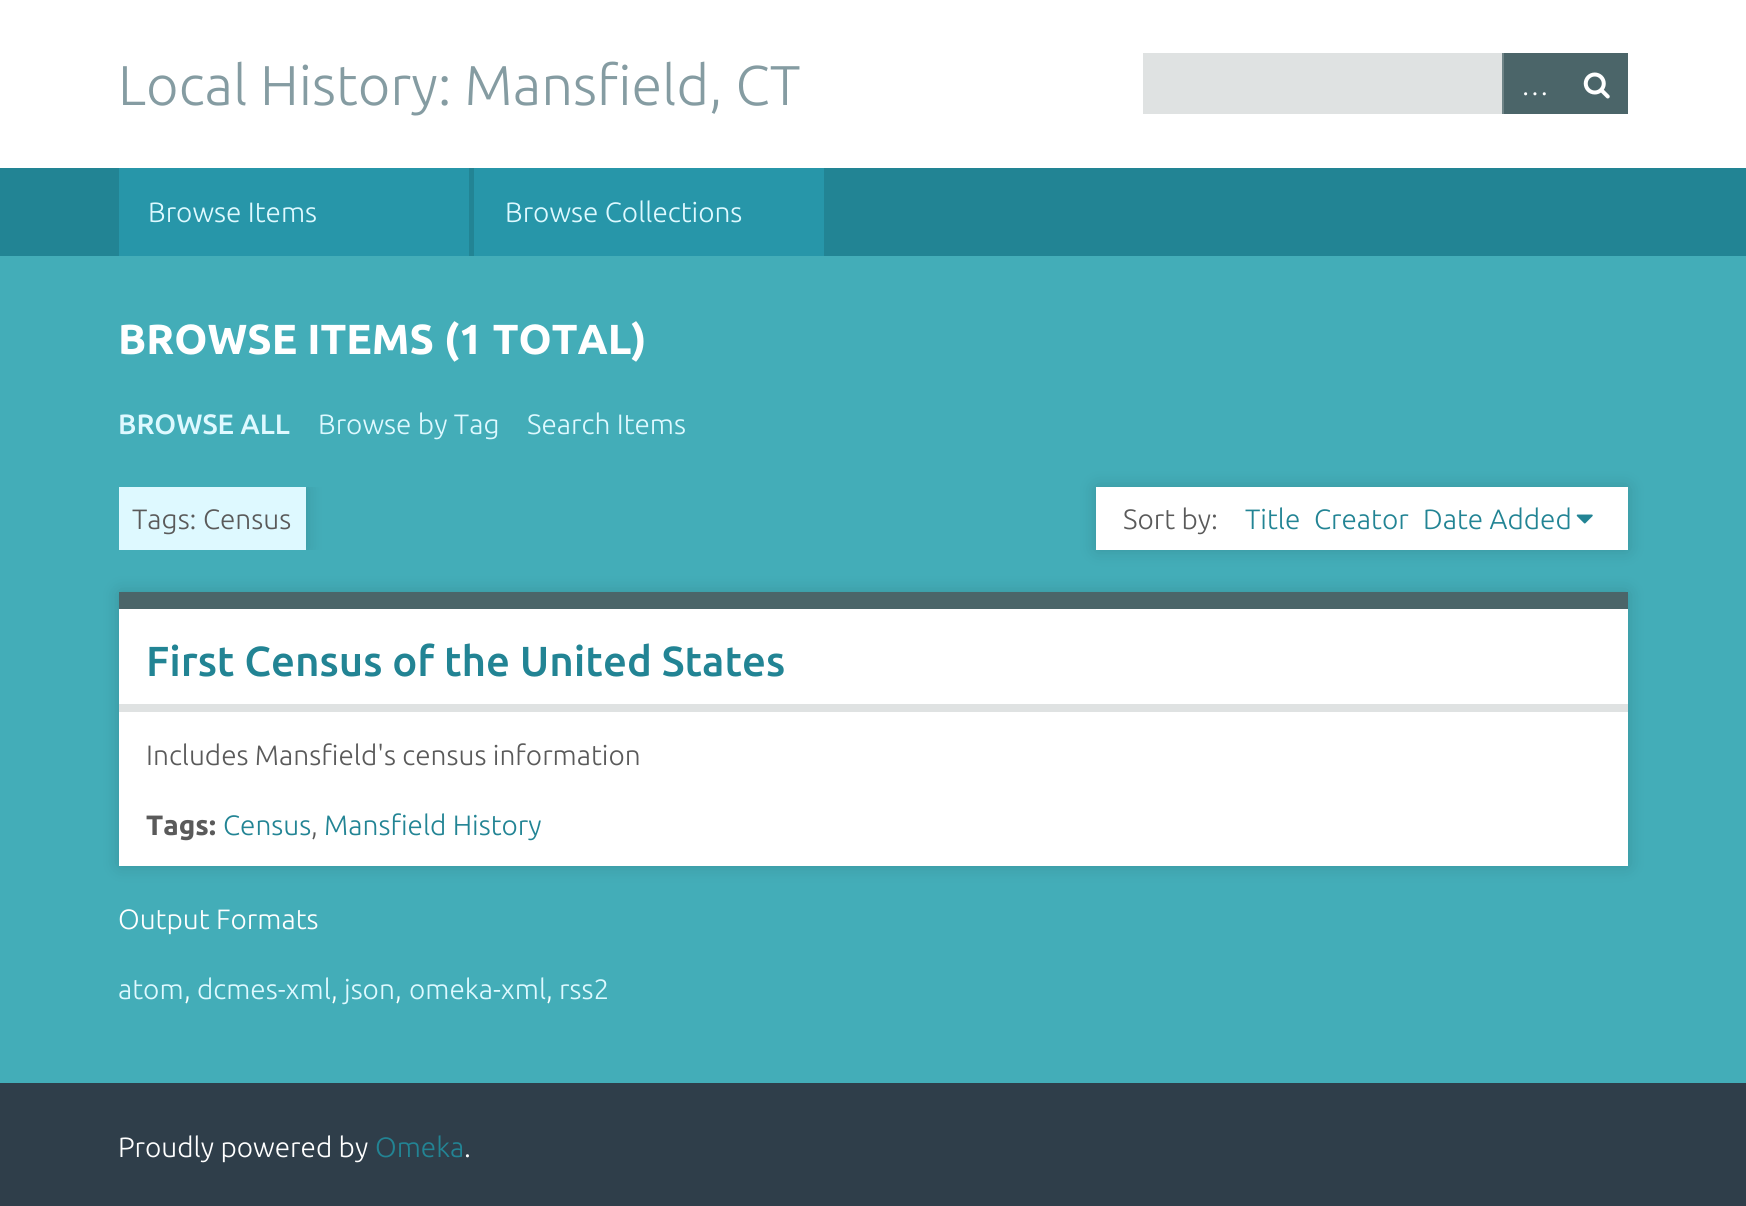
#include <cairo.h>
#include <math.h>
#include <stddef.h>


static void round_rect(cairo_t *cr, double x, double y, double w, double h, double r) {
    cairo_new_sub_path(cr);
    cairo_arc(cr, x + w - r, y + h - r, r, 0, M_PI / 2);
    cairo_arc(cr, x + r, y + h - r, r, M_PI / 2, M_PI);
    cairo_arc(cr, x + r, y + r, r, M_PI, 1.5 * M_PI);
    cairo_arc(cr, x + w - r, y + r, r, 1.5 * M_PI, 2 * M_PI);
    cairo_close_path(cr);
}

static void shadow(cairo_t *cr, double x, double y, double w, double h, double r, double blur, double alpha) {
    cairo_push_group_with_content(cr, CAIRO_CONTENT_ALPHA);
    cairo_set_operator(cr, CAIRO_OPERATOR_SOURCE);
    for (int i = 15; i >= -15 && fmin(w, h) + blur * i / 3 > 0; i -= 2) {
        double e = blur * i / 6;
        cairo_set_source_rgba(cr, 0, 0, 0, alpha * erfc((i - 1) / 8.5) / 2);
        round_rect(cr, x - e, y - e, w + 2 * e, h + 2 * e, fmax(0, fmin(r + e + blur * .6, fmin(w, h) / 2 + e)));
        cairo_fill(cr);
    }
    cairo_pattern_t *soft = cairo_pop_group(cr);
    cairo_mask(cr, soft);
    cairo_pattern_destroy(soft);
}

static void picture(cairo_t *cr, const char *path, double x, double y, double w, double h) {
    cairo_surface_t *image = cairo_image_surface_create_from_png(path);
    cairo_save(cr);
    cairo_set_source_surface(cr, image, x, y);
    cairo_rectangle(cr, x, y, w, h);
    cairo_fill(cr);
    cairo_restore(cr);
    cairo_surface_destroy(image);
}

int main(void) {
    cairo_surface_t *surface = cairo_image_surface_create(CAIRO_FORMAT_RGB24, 1746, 1206);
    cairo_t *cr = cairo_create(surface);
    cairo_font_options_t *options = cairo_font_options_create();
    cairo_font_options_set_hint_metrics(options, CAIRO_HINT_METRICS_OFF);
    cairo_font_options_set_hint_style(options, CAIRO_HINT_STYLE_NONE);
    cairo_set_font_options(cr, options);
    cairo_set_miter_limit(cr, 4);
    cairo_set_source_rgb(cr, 0.184, 0.243, 0.29);
    cairo_paint(cr);
    cairo_set_source_rgb(cr, 1, 1, 1);
    cairo_rectangle(cr, 0, 0, 1746, 168);
    cairo_fill(cr);
    cairo_select_font_face(cr, "Ubuntu Light", CAIRO_FONT_SLANT_NORMAL, CAIRO_FONT_WEIGHT_NORMAL);
    cairo_set_font_size(cr, 56);
    cairo_set_source_rgb(cr, 0.522, 0.612, 0.635);
    cairo_move_to(cr, 118, 105);
    cairo_show_text(cr, "Local History: Mansfield, CT");
    cairo_set_source_rgb(cr, 0.875, 0.886, 0.886);
    cairo_rectangle(cr, 1143, 53, 359, 61);
    cairo_fill(cr);
    cairo_set_source_rgb(cr, 0.294, 0.396, 0.412);
    cairo_rectangle(cr, 1504, 53, 124, 61);
    cairo_fill(cr);
    cairo_set_source_rgb(cr, 0.435, 0.518, 0.529);
    cairo_rectangle(cr, 1502, 53, 2, 61);
    cairo_fill(cr);
    cairo_set_font_size(cr, 28);
    cairo_set_source_rgb(cr, 1, 1, 1);
    cairo_move_to(cr, 1521, 95);
    cairo_show_text(cr, "…");
    picture(cr, "img1.png", 1583, 72, 27, 27);
    cairo_set_source_rgb(cr, 0.133, 0.518, 0.58);
    cairo_rectangle(cr, 0, 168, 1746, 88);
    cairo_fill(cr);
    cairo_set_source_rgb(cr, 0.153, 0.588, 0.663);
    cairo_rectangle(cr, 119, 168, 350, 88);
    cairo_fill(cr);
    cairo_set_source_rgb(cr, 0.871, 0.976, 1);
    cairo_move_to(cr, 148, 222);
    cairo_show_text(cr, "Browse Items");
    cairo_set_source_rgb(cr, 0.153, 0.588, 0.663);
    cairo_rectangle(cr, 474, 168, 350, 88);
    cairo_fill(cr);
    cairo_set_source_rgb(cr, 0.871, 0.976, 1);
    cairo_move_to(cr, 505, 222);
    cairo_show_text(cr, "Browse Collections");
    cairo_set_source_rgb(cr, 0.263, 0.678, 0.722);
    cairo_rectangle(cr, 0, 256, 1746, 827);
    cairo_fill(cr);
    cairo_select_font_face(cr, "Ubuntu", CAIRO_FONT_SLANT_NORMAL, CAIRO_FONT_WEIGHT_BOLD);
    cairo_set_font_size(cr, 42);
    cairo_set_source_rgb(cr, 1, 1, 1);
    cairo_move_to(cr, 118, 354);
    cairo_show_text(cr, "BROWSE ITEMS (1 TOTAL)");
    cairo_select_font_face(cr, "Ubuntu Medium", CAIRO_FONT_SLANT_NORMAL, CAIRO_FONT_WEIGHT_NORMAL);
    cairo_set_font_size(cr, 28);
    cairo_set_source_rgb(cr, 0.871, 0.976, 1);
    cairo_move_to(cr, 118, 434);
    cairo_show_text(cr, "BROWSE ALL");
    cairo_select_font_face(cr, "Ubuntu Light", CAIRO_FONT_SLANT_NORMAL, CAIRO_FONT_WEIGHT_NORMAL);
    cairo_move_to(cr, 318, 434);
    cairo_show_text(cr, "Browse by Tag");
    cairo_move_to(cr, 527, 434);
    cairo_show_text(cr, "Search Items");
    cairo_save(cr);
    cairo_rectangle(cr, 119, 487, 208, 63);
    cairo_clip(cr);
    cairo_set_source_rgb(cr, 0, 0, 0);
    shadow(cr, 119, 487, 187, 63, 0, 9, 0.15);
    cairo_restore(cr);
    cairo_rectangle(cr, 119, 487, 187, 63);
    cairo_fill(cr);
    cairo_set_source_rgb(cr, 0.353, 0.353, 0.353);
    cairo_move_to(cr, 132, 529);
    cairo_show_text(cr, "Tags: Census");
    cairo_set_source_rgb(cr, 0, 0, 0);
    shadow(cr, 1096, 487, 532, 63, 0, 9, 0.15);
    cairo_set_source_rgb(cr, 1, 1, 1);
    cairo_rectangle(cr, 1096, 487, 532, 63);
    cairo_fill(cr);
    cairo_set_source_rgb(cr, 0.353, 0.353, 0.353);
    cairo_move_to(cr, 1123, 529);
    cairo_show_text(cr, "Sort by:");
    cairo_set_source_rgb(cr, 0.133, 0.518, 0.58);
    cairo_move_to(cr, 1245, 529);
    cairo_show_text(cr, "Title");
    cairo_move_to(cr, 1314, 529);
    cairo_show_text(cr, "Creator");
    cairo_move_to(cr, 1423, 529);
    cairo_show_text(cr, "Date Added");
    picture(cr, "img2.png", 1576, 514, 17, 10);
    cairo_set_source_rgb(cr, 0, 0, 0);
    shadow(cr, 119, 592, 1509, 274, 0, 9, 0.15);
    cairo_set_source_rgb(cr, 1, 1, 1);
    cairo_rectangle(cr, 119, 609, 1509, 257);
    cairo_fill(cr);
    cairo_set_source_rgb(cr, 0.294, 0.396, 0.412);
    cairo_rectangle(cr, 119, 592, 1509, 17);
    cairo_fill(cr);
    cairo_set_source_rgb(cr, 0.875, 0.886, 0.886);
    cairo_rectangle(cr, 119, 704, 1509, 8);
    cairo_fill(cr);
    cairo_select_font_face(cr, "Ubuntu Medium", CAIRO_FONT_SLANT_NORMAL, CAIRO_FONT_WEIGHT_NORMAL);
    cairo_set_font_size(cr, 42);
    cairo_set_source_rgb(cr, 0.133, 0.518, 0.58);
    cairo_move_to(cr, 146, 676);
    cairo_show_text(cr, "First Census of the United States");
    cairo_select_font_face(cr, "Ubuntu Light", CAIRO_FONT_SLANT_NORMAL, CAIRO_FONT_WEIGHT_NORMAL);
    cairo_set_font_size(cr, 28);
    cairo_set_source_rgb(cr, 0.353, 0.353, 0.353);
    cairo_move_to(cr, 146, 765);
    cairo_show_text(cr, "Includes Mansfield's census information");
    cairo_select_font_face(cr, "Ubuntu", CAIRO_FONT_SLANT_NORMAL, CAIRO_FONT_WEIGHT_BOLD);
    cairo_move_to(cr, 146, 835);
    cairo_show_text(cr, "Tags:");
    cairo_select_font_face(cr, "Ubuntu Light", CAIRO_FONT_SLANT_NORMAL, CAIRO_FONT_WEIGHT_NORMAL);
    cairo_set_source_rgb(cr, 0.133, 0.518, 0.58);
    cairo_move_to(cr, 223, 835);
    cairo_show_text(cr, "Census");
    cairo_set_source_rgb(cr, 0.353, 0.353, 0.353);
    cairo_move_to(cr, 311, 835);
    cairo_show_text(cr, ",");
    cairo_set_source_rgb(cr, 0.133, 0.518, 0.58);
    cairo_move_to(cr, 324, 835);
    cairo_show_text(cr, "Mansfield History");
    cairo_set_source_rgb(cr, 1, 1, 1);
    cairo_move_to(cr, 118, 929);
    cairo_show_text(cr, "Output Formats");
    cairo_set_source_rgb(cr, 0.871, 0.976, 1);
    cairo_move_to(cr, 118, 999);
    cairo_show_text(cr, "atom");
    cairo_set_source_rgb(cr, 1, 1, 1);
    cairo_move_to(cr, 184, 999);
    cairo_show_text(cr, ",");
    cairo_set_source_rgb(cr, 0.871, 0.976, 1);
    cairo_move_to(cr, 197, 999);
    cairo_show_text(cr, "dcmes-xml");
    cairo_set_source_rgb(cr, 1, 1, 1);
    cairo_move_to(cr, 331, 999);
    cairo_show_text(cr, ",");
    cairo_set_source_rgb(cr, 0.871, 0.976, 1);
    cairo_move_to(cr, 344, 999);
    cairo_show_text(cr, "json");
    cairo_set_source_rgb(cr, 1, 1, 1);
    cairo_move_to(cr, 395, 999);
    cairo_show_text(cr, ",");
    cairo_set_source_rgb(cr, 0.871, 0.976, 1);
    cairo_move_to(cr, 409, 999);
    cairo_show_text(cr, "omeka-xml");
    cairo_set_source_rgb(cr, 1, 1, 1);
    cairo_move_to(cr, 546, 999);
    cairo_show_text(cr, ",");
    cairo_set_source_rgb(cr, 0.871, 0.976, 1);
    cairo_move_to(cr, 559, 999);
    cairo_show_text(cr, "rss2");
    cairo_set_source_rgb(cr, 1, 1, 1);
    cairo_move_to(cr, 118, 1157);
    cairo_show_text(cr, "Proudly powered by");
    cairo_set_source_rgb(cr, 0.133, 0.518, 0.58);
    cairo_move_to(cr, 375, 1157);
    cairo_show_text(cr, "Omeka");
    cairo_set_source_rgb(cr, 1, 1, 1);
    cairo_move_to(cr, 464, 1157);
    cairo_show_text(cr, ".");
    cairo_surface_write_to_png(surface, "page.png");
    cairo_font_options_destroy(options);
    cairo_destroy(cr);
    cairo_surface_destroy(surface);
    return 0;
}
